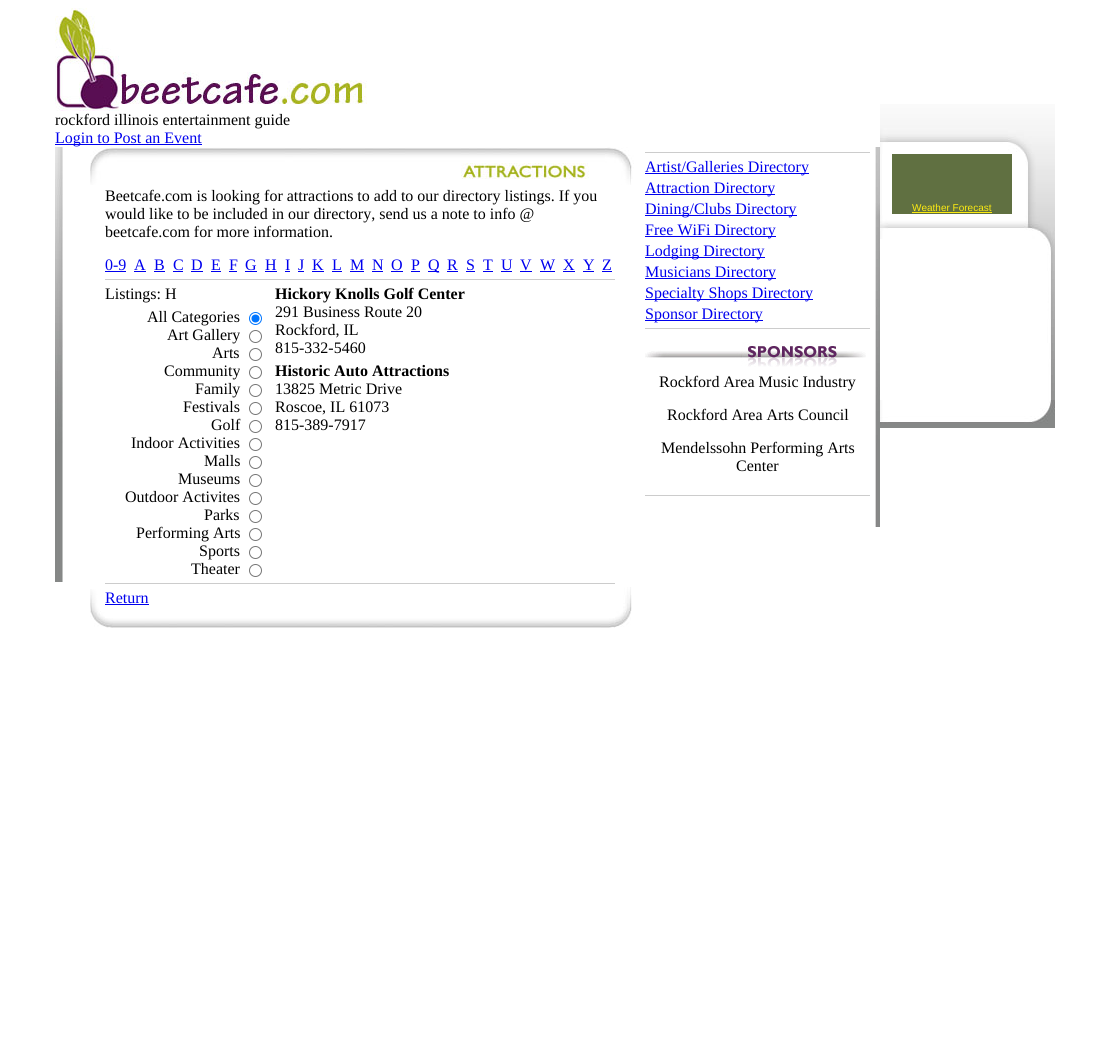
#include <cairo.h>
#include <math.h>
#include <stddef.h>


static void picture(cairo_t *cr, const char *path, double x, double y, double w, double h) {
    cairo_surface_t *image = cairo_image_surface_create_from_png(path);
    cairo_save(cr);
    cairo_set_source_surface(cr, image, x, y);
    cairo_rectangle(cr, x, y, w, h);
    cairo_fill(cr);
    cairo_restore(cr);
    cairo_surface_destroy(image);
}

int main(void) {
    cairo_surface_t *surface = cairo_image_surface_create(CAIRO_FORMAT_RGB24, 1110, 1041);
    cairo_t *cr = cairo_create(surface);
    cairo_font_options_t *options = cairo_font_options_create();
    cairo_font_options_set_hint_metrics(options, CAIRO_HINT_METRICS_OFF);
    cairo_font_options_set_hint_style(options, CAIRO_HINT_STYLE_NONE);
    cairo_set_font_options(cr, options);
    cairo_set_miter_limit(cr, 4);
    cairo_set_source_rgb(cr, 1, 1, 1);
    cairo_paint(cr);
    picture(cr, "img1.png", 55, 8, 312, 103);
    cairo_select_font_face(cr, "Liberation Serif", CAIRO_FONT_SLANT_NORMAL, CAIRO_FONT_WEIGHT_NORMAL);
    cairo_set_font_size(cr, 16);
    cairo_set_source_rgb(cr, 0, 0, 0);
    cairo_move_to(cr, 55, 125);
    cairo_show_text(cr, "rockford illinois entertainment guide");
    cairo_set_source_rgb(cr, 0, 0, 0.933);
    cairo_rectangle(cr, 55, 144, 147, 1);
    cairo_fill(cr);
    cairo_move_to(cr, 55, 143);
    cairo_show_text(cr, "Login to Post an Event");
    picture(cr, "img2.png", 55, 147, 8, 435);
    picture(cr, "img3.png", 90, 147, 544, 38);
    picture(cr, "img4.png", 90, 589, 15, 38);
    cairo_set_source_rgb(cr, 0, 0, 0);
    cairo_move_to(cr, 105, 201);
    cairo_show_text(cr, "Beetcafe.com is looking for attractions to add to our directory listings. If you");
    cairo_move_to(cr, 105, 219);
    cairo_show_text(cr, "would like to be included in our directory, send us a note to info @");
    cairo_move_to(cr, 105, 237);
    cairo_show_text(cr, "beetcafe.com for more information.");
    cairo_set_source_rgb(cr, 0, 0, 0.933);
    cairo_move_to(cr, 105, 270);
    cairo_show_text(cr, "0-9");
    cairo_rectangle(cr, 105, 271, 21, 1);
    cairo_fill(cr);
    cairo_move_to(cr, 134, 270);
    cairo_show_text(cr, "A");
    cairo_rectangle(cr, 134, 271, 12, 1);
    cairo_fill(cr);
    cairo_move_to(cr, 154, 270);
    cairo_show_text(cr, "B");
    cairo_rectangle(cr, 154, 271, 11, 1);
    cairo_fill(cr);
    cairo_move_to(cr, 173, 270);
    cairo_show_text(cr, "C");
    cairo_rectangle(cr, 173, 271, 10, 1);
    cairo_fill(cr);
    cairo_move_to(cr, 191, 270);
    cairo_show_text(cr, "D");
    cairo_rectangle(cr, 191, 271, 12, 1);
    cairo_fill(cr);
    cairo_move_to(cr, 211, 270);
    cairo_show_text(cr, "E");
    cairo_rectangle(cr, 211, 271, 10, 1);
    cairo_fill(cr);
    cairo_move_to(cr, 229, 270);
    cairo_show_text(cr, "F");
    cairo_rectangle(cr, 229, 271, 8, 1);
    cairo_fill(cr);
    cairo_move_to(cr, 245, 270);
    cairo_show_text(cr, "G");
    cairo_rectangle(cr, 245, 271, 12, 1);
    cairo_fill(cr);
    cairo_move_to(cr, 265, 270);
    cairo_show_text(cr, "H");
    cairo_rectangle(cr, 265, 271, 12, 1);
    cairo_fill(cr);
    cairo_move_to(cr, 285, 270);
    cairo_show_text(cr, "I");
    cairo_rectangle(cr, 285, 271, 5, 1);
    cairo_fill(cr);
    cairo_move_to(cr, 298, 270);
    cairo_show_text(cr, "J");
    cairo_rectangle(cr, 298, 271, 6, 1);
    cairo_fill(cr);
    cairo_move_to(cr, 312, 270);
    cairo_show_text(cr, "K");
    cairo_rectangle(cr, 312, 271, 12, 1);
    cairo_fill(cr);
    cairo_move_to(cr, 332, 270);
    cairo_show_text(cr, "L");
    cairo_rectangle(cr, 332, 271, 10, 1);
    cairo_fill(cr);
    cairo_move_to(cr, 350, 270);
    cairo_show_text(cr, "M");
    cairo_rectangle(cr, 350, 271, 14, 1);
    cairo_fill(cr);
    cairo_move_to(cr, 372, 270);
    cairo_show_text(cr, "N");
    cairo_rectangle(cr, 372, 271, 11, 1);
    cairo_fill(cr);
    cairo_move_to(cr, 391, 270);
    cairo_show_text(cr, "O");
    cairo_rectangle(cr, 391, 271, 12, 1);
    cairo_fill(cr);
    cairo_move_to(cr, 411, 270);
    cairo_show_text(cr, "P");
    cairo_rectangle(cr, 411, 271, 9, 1);
    cairo_fill(cr);
    cairo_rectangle(cr, 428, 271, 11, 1);
    cairo_fill(cr);
    cairo_move_to(cr, 428, 270);
    cairo_show_text(cr, "Q");
    cairo_move_to(cr, 447, 270);
    cairo_show_text(cr, "R");
    cairo_rectangle(cr, 447, 271, 11, 1);
    cairo_fill(cr);
    cairo_move_to(cr, 466, 270);
    cairo_show_text(cr, "S");
    cairo_rectangle(cr, 466, 271, 9, 1);
    cairo_fill(cr);
    cairo_move_to(cr, 483, 270);
    cairo_show_text(cr, "T");
    cairo_rectangle(cr, 483, 271, 10, 1);
    cairo_fill(cr);
    cairo_move_to(cr, 501, 270);
    cairo_show_text(cr, "U");
    cairo_rectangle(cr, 501, 271, 11, 1);
    cairo_fill(cr);
    cairo_move_to(cr, 520, 270);
    cairo_show_text(cr, "V");
    cairo_rectangle(cr, 520, 271, 12, 1);
    cairo_fill(cr);
    cairo_move_to(cr, 540, 270);
    cairo_show_text(cr, "W");
    cairo_rectangle(cr, 540, 271, 15, 1);
    cairo_fill(cr);
    cairo_move_to(cr, 563, 270);
    cairo_show_text(cr, "X");
    cairo_rectangle(cr, 563, 271, 12, 1);
    cairo_fill(cr);
    cairo_move_to(cr, 583, 270);
    cairo_show_text(cr, "Y");
    cairo_rectangle(cr, 583, 271, 11, 1);
    cairo_fill(cr);
    cairo_move_to(cr, 602, 270);
    cairo_show_text(cr, "Z");
    cairo_rectangle(cr, 602, 271, 10, 1);
    cairo_fill(cr);
    cairo_set_source_rgb(cr, 0.8, 0.8, 0.8);
    cairo_rectangle(cr, 105, 279, 510, 1);
    cairo_fill(cr);
    cairo_set_source_rgb(cr, 0, 0, 0);
    cairo_move_to(cr, 105, 299);
    cairo_show_text(cr, "Listings: H");
    cairo_move_to(cr, 147, 322);
    cairo_show_text(cr, "All Categories");
    cairo_new_path(cr);
    cairo_arc(cr, 255.5, 318.5, 6, 0, 2 * M_PI);
    cairo_set_source_rgb(cr, 0, 0.459, 1);
    cairo_set_line_width(cr, 1);
    cairo_stroke(cr);
    cairo_arc(cr, 255.5, 318.5, 4, 0, 2 * M_PI);
    cairo_fill(cr);
    cairo_set_source_rgb(cr, 0, 0, 0);
    cairo_move_to(cr, 167, 340);
    cairo_show_text(cr, "Art Gallery");
    cairo_new_path(cr);
    cairo_arc(cr, 255.5, 336.5, 6, 0, 2 * M_PI);
    cairo_set_source_rgb(cr, 0.463, 0.463, 0.463);
    cairo_stroke(cr);
    cairo_set_source_rgb(cr, 0, 0, 0);
    cairo_move_to(cr, 212, 358);
    cairo_show_text(cr, "Arts");
    cairo_new_path(cr);
    cairo_arc(cr, 255.5, 354.5, 6, 0, 2 * M_PI);
    cairo_set_source_rgb(cr, 0.463, 0.463, 0.463);
    cairo_stroke(cr);
    cairo_set_source_rgb(cr, 0, 0, 0);
    cairo_move_to(cr, 164, 376);
    cairo_show_text(cr, "Community");
    cairo_new_path(cr);
    cairo_arc(cr, 255.5, 372.5, 6, 0, 2 * M_PI);
    cairo_set_source_rgb(cr, 0.463, 0.463, 0.463);
    cairo_stroke(cr);
    cairo_set_source_rgb(cr, 0, 0, 0);
    cairo_move_to(cr, 195, 394);
    cairo_show_text(cr, "Family");
    cairo_new_path(cr);
    cairo_arc(cr, 255.5, 390.5, 6, 0, 2 * M_PI);
    cairo_set_source_rgb(cr, 0.463, 0.463, 0.463);
    cairo_stroke(cr);
    cairo_set_source_rgb(cr, 0, 0, 0);
    cairo_move_to(cr, 183, 412);
    cairo_show_text(cr, "Festivals");
    cairo_new_path(cr);
    cairo_arc(cr, 255.5, 408.5, 6, 0, 2 * M_PI);
    cairo_set_source_rgb(cr, 0.463, 0.463, 0.463);
    cairo_stroke(cr);
    cairo_set_source_rgb(cr, 0, 0, 0);
    cairo_move_to(cr, 211, 430);
    cairo_show_text(cr, "Golf");
    cairo_new_path(cr);
    cairo_arc(cr, 255.5, 426.5, 6, 0, 2 * M_PI);
    cairo_set_source_rgb(cr, 0.463, 0.463, 0.463);
    cairo_stroke(cr);
    cairo_set_source_rgb(cr, 0, 0, 0);
    cairo_move_to(cr, 131, 448);
    cairo_show_text(cr, "Indoor Activities");
    cairo_new_path(cr);
    cairo_arc(cr, 255.5, 444.5, 6, 0, 2 * M_PI);
    cairo_set_source_rgb(cr, 0.463, 0.463, 0.463);
    cairo_stroke(cr);
    cairo_set_source_rgb(cr, 0, 0, 0);
    cairo_move_to(cr, 204, 466);
    cairo_show_text(cr, "Malls");
    cairo_new_path(cr);
    cairo_arc(cr, 255.5, 462.5, 6, 0, 2 * M_PI);
    cairo_set_source_rgb(cr, 0.463, 0.463, 0.463);
    cairo_stroke(cr);
    cairo_set_source_rgb(cr, 0, 0, 0);
    cairo_move_to(cr, 178, 484);
    cairo_show_text(cr, "Museums");
    cairo_new_path(cr);
    cairo_arc(cr, 255.5, 480.5, 6, 0, 2 * M_PI);
    cairo_set_source_rgb(cr, 0.463, 0.463, 0.463);
    cairo_stroke(cr);
    cairo_set_source_rgb(cr, 0, 0, 0);
    cairo_move_to(cr, 125, 502);
    cairo_show_text(cr, "Outdoor Activites");
    cairo_new_path(cr);
    cairo_arc(cr, 255.5, 498.5, 6, 0, 2 * M_PI);
    cairo_set_source_rgb(cr, 0.463, 0.463, 0.463);
    cairo_stroke(cr);
    cairo_set_source_rgb(cr, 0, 0, 0);
    cairo_move_to(cr, 204, 520);
    cairo_show_text(cr, "Parks");
    cairo_new_path(cr);
    cairo_arc(cr, 255.5, 516.5, 6, 0, 2 * M_PI);
    cairo_set_source_rgb(cr, 0.463, 0.463, 0.463);
    cairo_stroke(cr);
    cairo_set_source_rgb(cr, 0, 0, 0);
    cairo_move_to(cr, 136, 538);
    cairo_show_text(cr, "Performing Arts");
    cairo_new_path(cr);
    cairo_arc(cr, 255.5, 534.5, 6, 0, 2 * M_PI);
    cairo_set_source_rgb(cr, 0.463, 0.463, 0.463);
    cairo_stroke(cr);
    cairo_set_source_rgb(cr, 0, 0, 0);
    cairo_move_to(cr, 199, 556);
    cairo_show_text(cr, "Sports");
    cairo_new_path(cr);
    cairo_arc(cr, 255.5, 552.5, 6, 0, 2 * M_PI);
    cairo_set_source_rgb(cr, 0.463, 0.463, 0.463);
    cairo_stroke(cr);
    cairo_set_source_rgb(cr, 0, 0, 0);
    cairo_move_to(cr, 191, 574);
    cairo_show_text(cr, "Theater");
    cairo_new_path(cr);
    cairo_arc(cr, 255.5, 570.5, 6, 0, 2 * M_PI);
    cairo_set_source_rgb(cr, 0.463, 0.463, 0.463);
    cairo_stroke(cr);
    cairo_select_font_face(cr, "Liberation Serif", CAIRO_FONT_SLANT_NORMAL, CAIRO_FONT_WEIGHT_BOLD);
    cairo_set_source_rgb(cr, 0, 0, 0);
    cairo_move_to(cr, 275, 299);
    cairo_show_text(cr, "Hickory Knolls Golf Center");
    cairo_select_font_face(cr, "Liberation Serif", CAIRO_FONT_SLANT_NORMAL, CAIRO_FONT_WEIGHT_NORMAL);
    cairo_move_to(cr, 275, 317);
    cairo_show_text(cr, "291 Business Route 20");
    cairo_move_to(cr, 275, 335);
    cairo_show_text(cr, "Rockford, IL");
    cairo_move_to(cr, 275, 353);
    cairo_show_text(cr, "815-332-5460");
    cairo_select_font_face(cr, "Liberation Serif", CAIRO_FONT_SLANT_NORMAL, CAIRO_FONT_WEIGHT_BOLD);
    cairo_move_to(cr, 275, 376);
    cairo_show_text(cr, "Historic Auto Attractions");
    cairo_select_font_face(cr, "Liberation Serif", CAIRO_FONT_SLANT_NORMAL, CAIRO_FONT_WEIGHT_NORMAL);
    cairo_move_to(cr, 275, 394);
    cairo_show_text(cr, "13825 Metric Drive");
    cairo_move_to(cr, 275, 412);
    cairo_show_text(cr, "Roscoe, IL 61073");
    cairo_move_to(cr, 275, 430);
    cairo_show_text(cr, "815-389-7917");
    cairo_set_source_rgb(cr, 0.8, 0.8, 0.8);
    cairo_rectangle(cr, 105, 583, 510, 1);
    cairo_fill(cr);
    cairo_set_source_rgb(cr, 0, 0, 0.933);
    cairo_move_to(cr, 105, 603);
    cairo_show_text(cr, "Return");
    cairo_rectangle(cr, 105, 604, 44, 1);
    cairo_fill(cr);
    picture(cr, "img5.png", 105, 618, 510, 10);
    picture(cr, "img6.png", 615, 587, 17, 40);
    cairo_set_source_rgb(cr, 0.8, 0.8, 0.8);
    cairo_rectangle(cr, 645, 152, 225, 1);
    cairo_fill(cr);
    cairo_set_source_rgb(cr, 0, 0, 0.933);
    cairo_rectangle(cr, 645, 173, 164, 1);
    cairo_fill(cr);
    cairo_move_to(cr, 645, 172);
    cairo_show_text(cr, "Artist/Galleries Directory");
    cairo_rectangle(cr, 645, 194, 130, 1);
    cairo_fill(cr);
    cairo_move_to(cr, 645, 193);
    cairo_show_text(cr, "Attraction Directory");
    cairo_rectangle(cr, 645, 215, 152, 1);
    cairo_fill(cr);
    cairo_move_to(cr, 645, 214);
    cairo_show_text(cr, "Dining/Clubs Directory");
    cairo_rectangle(cr, 645, 236, 131, 1);
    cairo_fill(cr);
    cairo_move_to(cr, 645, 235);
    cairo_show_text(cr, "Free WiFi Directory");
    cairo_rectangle(cr, 645, 257, 120, 1);
    cairo_fill(cr);
    cairo_move_to(cr, 645, 256);
    cairo_show_text(cr, "Lodging Directory");
    cairo_rectangle(cr, 645, 278, 131, 1);
    cairo_fill(cr);
    cairo_move_to(cr, 645, 277);
    cairo_show_text(cr, "Musicians Directory");
    cairo_rectangle(cr, 645, 299, 168, 1);
    cairo_fill(cr);
    cairo_move_to(cr, 645, 298);
    cairo_show_text(cr, "Specialty Shops Directory");
    cairo_rectangle(cr, 645, 320, 118, 1);
    cairo_fill(cr);
    cairo_move_to(cr, 645, 319);
    cairo_show_text(cr, "Sponsor Directory");
    cairo_set_source_rgb(cr, 0.8, 0.8, 0.8);
    cairo_rectangle(cr, 645, 328, 225, 1);
    cairo_fill(cr);
    picture(cr, "img7.png", 645, 342, 221, 25);
    cairo_set_source_rgb(cr, 0, 0, 0);
    cairo_move_to(cr, 659, 387);
    cairo_show_text(cr, "Rockford Area Music Industry");
    cairo_move_to(cr, 667, 420);
    cairo_show_text(cr, "Rockford Area Arts Council");
    cairo_move_to(cr, 661, 453);
    cairo_show_text(cr, "Mendelssohn Performing Arts");
    cairo_move_to(cr, 736, 471);
    cairo_show_text(cr, "Center");
    cairo_set_source_rgb(cr, 0.8, 0.8, 0.8);
    cairo_rectangle(cr, 645, 495, 225, 1);
    cairo_fill(cr);
    picture(cr, "img8.png", 875, 147, 5, 380);
    picture(cr, "img9.png", 880, 104, 175, 50);
    cairo_set_source_rgb(cr, 0.976, 0.976, 0.976);
    cairo_rectangle(cr, 880, 154, 2, 61);
    cairo_fill(cr);
    cairo_set_source_rgb(cr, 0.376, 0.439, 0.255);
    cairo_rectangle(cr, 892, 154, 120, 60);
    cairo_fill(cr);
    cairo_select_font_face(cr, "Liberation Sans", CAIRO_FONT_SLANT_NORMAL, CAIRO_FONT_WEIGHT_NORMAL);
    cairo_set_font_size(cr, 10);
    cairo_set_source_rgb(cr, 0.992, 0.918, 0.067);
    cairo_move_to(cr, 912, 211);
    cairo_show_text(cr, "Weather Forecast");
    cairo_rectangle(cr, 912, 212, 80, 1);
    cairo_fill(cr);
    picture(cr, "img10.png", 1025, 154, 30, 61);
    picture(cr, "img11.png", 880, 215, 175, 24);
    picture(cr, "img12.png", 1047, 239, 8, 161);
    picture(cr, "img13.png", 880, 400, 175, 28);
    cairo_surface_write_to_png(surface, "page.png");
    cairo_font_options_destroy(options);
    cairo_destroy(cr);
    cairo_surface_destroy(surface);
    return 0;
}
